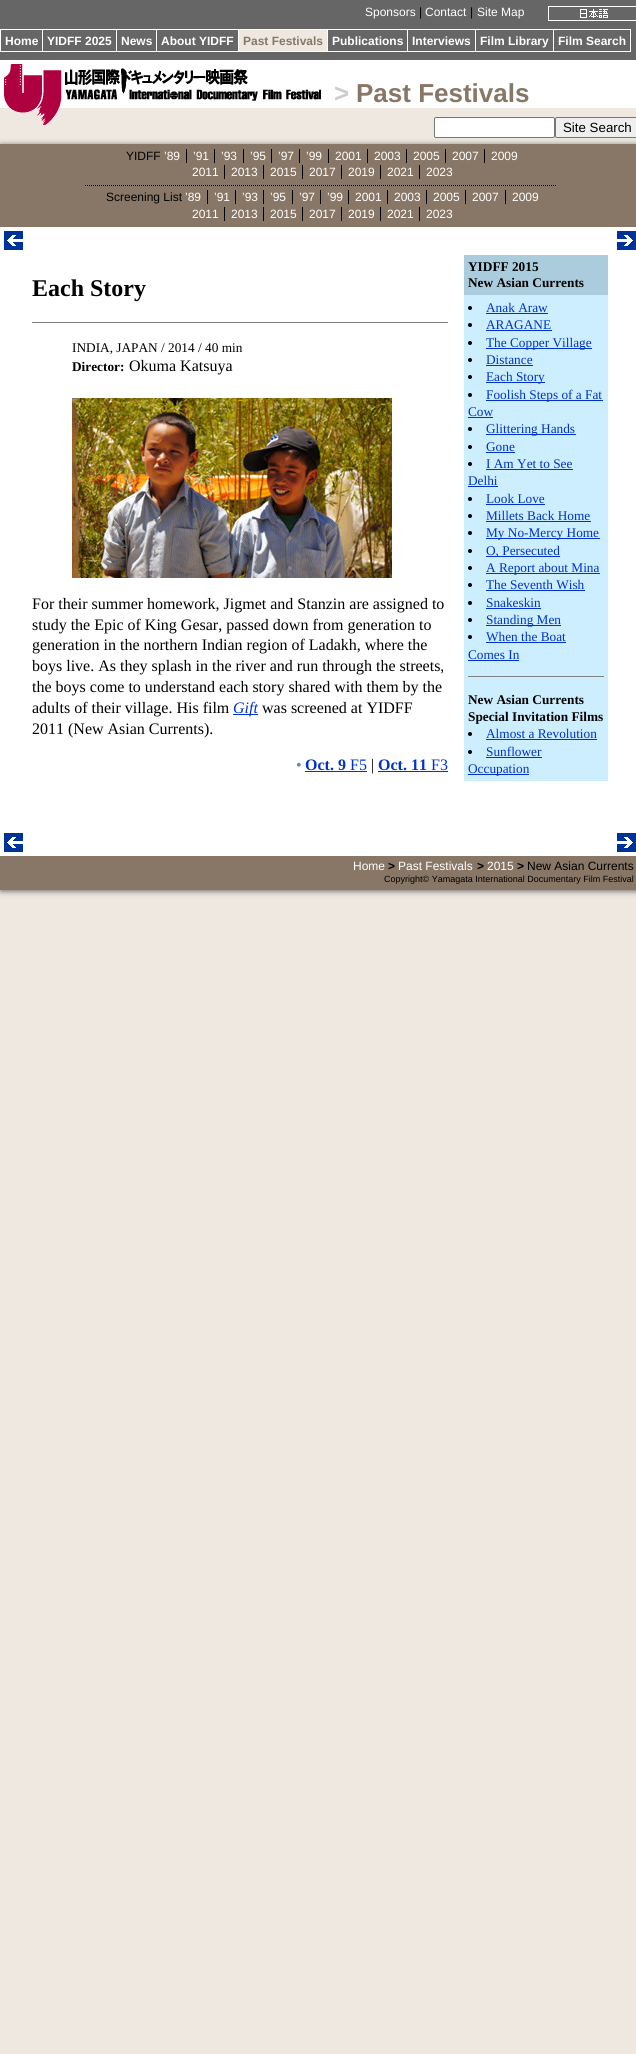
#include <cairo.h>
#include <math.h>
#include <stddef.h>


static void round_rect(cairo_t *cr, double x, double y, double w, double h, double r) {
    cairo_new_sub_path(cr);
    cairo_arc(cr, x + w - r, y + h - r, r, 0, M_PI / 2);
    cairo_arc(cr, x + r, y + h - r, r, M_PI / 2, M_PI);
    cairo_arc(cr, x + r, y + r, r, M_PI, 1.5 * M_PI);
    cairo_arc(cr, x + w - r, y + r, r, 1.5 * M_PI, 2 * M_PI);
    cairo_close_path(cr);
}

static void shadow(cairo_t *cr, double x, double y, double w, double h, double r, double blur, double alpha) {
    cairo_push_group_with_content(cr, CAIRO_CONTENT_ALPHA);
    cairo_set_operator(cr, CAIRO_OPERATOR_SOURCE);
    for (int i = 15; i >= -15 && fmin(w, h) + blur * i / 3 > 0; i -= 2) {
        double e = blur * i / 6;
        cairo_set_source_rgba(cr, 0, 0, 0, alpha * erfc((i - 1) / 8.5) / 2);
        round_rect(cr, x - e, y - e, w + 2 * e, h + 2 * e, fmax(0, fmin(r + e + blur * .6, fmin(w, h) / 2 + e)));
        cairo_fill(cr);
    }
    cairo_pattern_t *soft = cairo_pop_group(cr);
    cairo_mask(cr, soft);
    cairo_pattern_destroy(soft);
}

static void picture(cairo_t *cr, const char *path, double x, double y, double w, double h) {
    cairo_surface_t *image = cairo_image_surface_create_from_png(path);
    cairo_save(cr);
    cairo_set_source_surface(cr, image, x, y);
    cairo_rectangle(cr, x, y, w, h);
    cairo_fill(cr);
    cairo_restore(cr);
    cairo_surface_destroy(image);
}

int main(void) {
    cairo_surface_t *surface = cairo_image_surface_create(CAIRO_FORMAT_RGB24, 636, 2054);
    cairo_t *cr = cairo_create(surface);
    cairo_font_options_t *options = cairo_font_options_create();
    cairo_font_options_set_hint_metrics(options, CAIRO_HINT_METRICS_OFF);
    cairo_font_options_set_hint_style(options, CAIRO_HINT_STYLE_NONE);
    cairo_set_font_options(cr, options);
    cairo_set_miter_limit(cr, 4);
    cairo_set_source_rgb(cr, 0.933, 0.91, 0.878);
    cairo_paint(cr);
    cairo_set_source_rgb(cr, 0.4, 0.4, 0.4);
    cairo_rectangle(cr, 0, 0, 636, 60);
    cairo_fill(cr);
    cairo_select_font_face(cr, "Liberation Sans", CAIRO_FONT_SLANT_NORMAL, CAIRO_FONT_WEIGHT_NORMAL);
    cairo_set_font_size(cr, 12);
    cairo_set_source_rgb(cr, 1, 1, 1);
    cairo_move_to(cr, 365, 16);
    cairo_show_text(cr, "Sponsors");
    cairo_set_source_rgb(cr, 0, 0, 0);
    cairo_move_to(cr, 419, 16);
    cairo_show_text(cr, "|");
    cairo_set_source_rgb(cr, 1, 1, 1);
    cairo_move_to(cr, 425, 16);
    cairo_show_text(cr, "Contact");
    cairo_set_source_rgb(cr, 0, 0, 0);
    cairo_move_to(cr, 470, 16);
    cairo_show_text(cr, "|");
    cairo_set_source_rgb(cr, 1, 1, 1);
    cairo_move_to(cr, 477, 16);
    cairo_show_text(cr, "Site Map");
    picture(cr, "img1.png", 548, 6, 88, 15);
    cairo_rectangle(cr, 0.5, 29.5, 42, 22);
    cairo_set_line_width(cr, 1);
    cairo_stroke(cr);
    cairo_select_font_face(cr, "Liberation Sans", CAIRO_FONT_SLANT_NORMAL, CAIRO_FONT_WEIGHT_BOLD);
    cairo_move_to(cr, 5, 45);
    cairo_show_text(cr, "Home");
    cairo_move_to(cr, 47, 45);
    cairo_show_text(cr, "YIDFF 2025");
    cairo_rectangle(cr, 43, 29, 588, 1);
    cairo_fill(cr);
    cairo_rectangle(cr, 116, 29, 1, 23);
    cairo_fill(cr);
    cairo_rectangle(cr, 43, 51, 74, 1);
    cairo_fill(cr);
    cairo_move_to(cr, 121, 45);
    cairo_show_text(cr, "News");
    cairo_rectangle(cr, 156, 29, 1, 23);
    cairo_fill(cr);
    cairo_rectangle(cr, 117, 51, 40, 1);
    cairo_fill(cr);
    cairo_move_to(cr, 161, 45);
    cairo_show_text(cr, "About YIDFF");
    cairo_rectangle(cr, 238, 29, 1, 23);
    cairo_fill(cr);
    cairo_rectangle(cr, 157, 51, 82, 1);
    cairo_fill(cr);
    cairo_set_source_rgb(cr, 0.933, 0.91, 0.878);
    cairo_rectangle(cr, 239, 30, 88, 21);
    cairo_fill(cr);
    cairo_set_source_rgb(cr, 0.533, 0.467, 0.4);
    cairo_move_to(cr, 243, 45);
    cairo_show_text(cr, "Past Festivals");
    cairo_set_source_rgb(cr, 1, 1, 1);
    cairo_rectangle(cr, 327, 29, 1, 23);
    cairo_fill(cr);
    cairo_rectangle(cr, 239, 51, 89, 1);
    cairo_fill(cr);
    cairo_move_to(cr, 332, 45);
    cairo_show_text(cr, "Publications");
    cairo_rectangle(cr, 407, 29, 1, 23);
    cairo_fill(cr);
    cairo_rectangle(cr, 328, 51, 80, 1);
    cairo_fill(cr);
    cairo_move_to(cr, 412, 45);
    cairo_show_text(cr, "Interviews");
    cairo_rectangle(cr, 475, 29, 1, 23);
    cairo_fill(cr);
    cairo_rectangle(cr, 408, 51, 68, 1);
    cairo_fill(cr);
    cairo_move_to(cr, 480, 45);
    cairo_show_text(cr, "Film Library");
    cairo_rectangle(cr, 553, 29, 1, 23);
    cairo_fill(cr);
    cairo_rectangle(cr, 476, 51, 78, 1);
    cairo_fill(cr);
    cairo_move_to(cr, 558, 45);
    cairo_show_text(cr, "Film Search");
    cairo_rectangle(cr, 630, 29, 1, 23);
    cairo_fill(cr);
    cairo_rectangle(cr, 554, 51, 77, 1);
    cairo_fill(cr);
    cairo_rectangle(cr, 0, 60, 636, 48);
    cairo_fill(cr);
    picture(cr, "img2.png", 4, 64, 317, 61);
    cairo_set_font_size(cr, 26);
    cairo_set_source_rgb(cr, 0.8, 0.8, 0.8);
    cairo_move_to(cr, 334, 102);
    cairo_show_text(cr, ">");
    cairo_set_source_rgb(cr, 0.533, 0.467, 0.4);
    cairo_move_to(cr, 356, 102);
    cairo_show_text(cr, "Past Festivals");
    cairo_set_source_rgb(cr, 0.4, 0.4, 0.4);
    shadow(cr, 1, 145, 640, 746, 0, 3, 1);
    cairo_set_source_rgb(cr, 1, 1, 1);
    round_rect(cr, 434.5, 117.5, 120, 20, 1.5);
    cairo_fill_preserve(cr);
    cairo_set_source_rgb(cr, 0.463, 0.463, 0.463);
    cairo_stroke(cr);
    cairo_set_source_rgb(cr, 0.937, 0.937, 0.937);
    round_rect(cr, 555.5, 117.5, 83, 20, 1.5);
    cairo_fill_preserve(cr);
    cairo_set_source_rgb(cr, 0.463, 0.463, 0.463);
    cairo_stroke(cr);
    cairo_select_font_face(cr, "Liberation Sans", CAIRO_FONT_SLANT_NORMAL, CAIRO_FONT_WEIGHT_NORMAL);
    cairo_set_font_size(cr, 13.3);
    cairo_set_source_rgb(cr, 0, 0, 0);
    cairo_move_to(cr, 563, 132);
    cairo_show_text(cr, "Site Search");
    cairo_set_source_rgb(cr, 0.533, 0.467, 0.4);
    cairo_rectangle(cr, 0, 144, 636, 746);
    cairo_fill(cr);
    cairo_set_font_size(cr, 12);
    cairo_set_source_rgb(cr, 0, 0, 0);
    cairo_move_to(cr, 126, 160);
    cairo_show_text(cr, "YIDFF");
    cairo_set_source_rgb(cr, 1, 1, 1);
    cairo_move_to(cr, 164, 160);
    cairo_show_text(cr, "’89");
    cairo_move_to(cr, 193, 160);
    cairo_show_text(cr, "’91");
    cairo_set_source_rgb(cr, 0, 0, 0);
    cairo_rectangle(cr, 186, 149, 1, 14);
    cairo_fill(cr);
    cairo_set_source_rgb(cr, 1, 1, 1);
    cairo_move_to(cr, 221, 160);
    cairo_show_text(cr, "’93");
    cairo_set_source_rgb(cr, 0, 0, 0);
    cairo_rectangle(cr, 214, 149, 1, 14);
    cairo_fill(cr);
    cairo_set_source_rgb(cr, 1, 1, 1);
    cairo_move_to(cr, 250, 160);
    cairo_show_text(cr, "’95");
    cairo_set_source_rgb(cr, 0, 0, 0);
    cairo_rectangle(cr, 243, 149, 1, 14);
    cairo_fill(cr);
    cairo_set_source_rgb(cr, 1, 1, 1);
    cairo_move_to(cr, 278, 160);
    cairo_show_text(cr, "’97");
    cairo_set_source_rgb(cr, 0, 0, 0);
    cairo_rectangle(cr, 271, 149, 1, 14);
    cairo_fill(cr);
    cairo_set_source_rgb(cr, 1, 1, 1);
    cairo_move_to(cr, 306, 160);
    cairo_show_text(cr, "’99");
    cairo_set_source_rgb(cr, 0, 0, 0);
    cairo_rectangle(cr, 299, 149, 1, 14);
    cairo_fill(cr);
    cairo_set_source_rgb(cr, 1, 1, 1);
    cairo_move_to(cr, 335, 160);
    cairo_show_text(cr, "2001");
    cairo_set_source_rgb(cr, 0, 0, 0);
    cairo_rectangle(cr, 328, 149, 1, 14);
    cairo_fill(cr);
    cairo_set_source_rgb(cr, 1, 1, 1);
    cairo_move_to(cr, 374, 160);
    cairo_show_text(cr, "2003");
    cairo_set_source_rgb(cr, 0, 0, 0);
    cairo_rectangle(cr, 367, 149, 1, 14);
    cairo_fill(cr);
    cairo_set_source_rgb(cr, 1, 1, 1);
    cairo_move_to(cr, 413, 160);
    cairo_show_text(cr, "2005");
    cairo_set_source_rgb(cr, 0, 0, 0);
    cairo_rectangle(cr, 406, 149, 1, 14);
    cairo_fill(cr);
    cairo_set_source_rgb(cr, 1, 1, 1);
    cairo_move_to(cr, 452, 160);
    cairo_show_text(cr, "2007");
    cairo_set_source_rgb(cr, 0, 0, 0);
    cairo_rectangle(cr, 445, 149, 1, 14);
    cairo_fill(cr);
    cairo_set_source_rgb(cr, 1, 1, 1);
    cairo_move_to(cr, 491, 160);
    cairo_show_text(cr, "2009");
    cairo_set_source_rgb(cr, 0, 0, 0);
    cairo_rectangle(cr, 484, 149, 1, 14);
    cairo_fill(cr);
    cairo_set_source_rgb(cr, 1, 1, 1);
    cairo_move_to(cr, 192, 176);
    cairo_show_text(cr, "2011");
    cairo_move_to(cr, 231, 176);
    cairo_show_text(cr, "2013");
    cairo_set_source_rgb(cr, 0, 0, 0);
    cairo_rectangle(cr, 224, 165, 1, 14);
    cairo_fill(cr);
    cairo_set_source_rgb(cr, 1, 1, 1);
    cairo_move_to(cr, 270, 176);
    cairo_show_text(cr, "2015");
    cairo_set_source_rgb(cr, 0, 0, 0);
    cairo_rectangle(cr, 263, 165, 1, 14);
    cairo_fill(cr);
    cairo_set_source_rgb(cr, 1, 1, 1);
    cairo_move_to(cr, 309, 176);
    cairo_show_text(cr, "2017");
    cairo_set_source_rgb(cr, 0, 0, 0);
    cairo_rectangle(cr, 302, 165, 1, 14);
    cairo_fill(cr);
    cairo_set_source_rgb(cr, 1, 1, 1);
    cairo_move_to(cr, 348, 176);
    cairo_show_text(cr, "2019");
    cairo_set_source_rgb(cr, 0, 0, 0);
    cairo_rectangle(cr, 341, 165, 1, 14);
    cairo_fill(cr);
    cairo_set_source_rgb(cr, 1, 1, 1);
    cairo_move_to(cr, 387, 176);
    cairo_show_text(cr, "2021");
    cairo_set_source_rgb(cr, 0, 0, 0);
    cairo_rectangle(cr, 380, 165, 1, 14);
    cairo_fill(cr);
    cairo_set_source_rgb(cr, 1, 1, 1);
    cairo_move_to(cr, 426, 176);
    cairo_show_text(cr, "2023");
    cairo_set_source_rgb(cr, 0, 0, 0);
    cairo_rectangle(cr, 419, 165, 1, 14);
    cairo_fill(cr);
    cairo_set_source_rgb(cr, 0.502, 0.502, 0.502);
    cairo_rectangle(cr, 85, 185, 471, 1);
    cairo_fill(cr);
    cairo_new_path(cr);
    cairo_move_to(cr, 85, 185.5);
    cairo_line_to(cr, 556, 185.5);
    cairo_set_source_rgb(cr, 0, 0, 0);
    cairo_set_dash(cr, (double[]){1, 1}, 2, 0);
    cairo_stroke(cr);
    cairo_move_to(cr, 106, 201);
    cairo_show_text(cr, "Screening List");
    cairo_set_source_rgb(cr, 1, 1, 1);
    cairo_move_to(cr, 185, 201);
    cairo_show_text(cr, "’89");
    cairo_move_to(cr, 214, 201);
    cairo_show_text(cr, "’91");
    cairo_set_source_rgb(cr, 0, 0, 0);
    cairo_rectangle(cr, 207, 190, 1, 14);
    cairo_fill(cr);
    cairo_set_source_rgb(cr, 1, 1, 1);
    cairo_move_to(cr, 242, 201);
    cairo_show_text(cr, "’93");
    cairo_set_source_rgb(cr, 0, 0, 0);
    cairo_rectangle(cr, 235, 190, 1, 14);
    cairo_fill(cr);
    cairo_set_source_rgb(cr, 1, 1, 1);
    cairo_move_to(cr, 270, 201);
    cairo_show_text(cr, "’95");
    cairo_set_source_rgb(cr, 0, 0, 0);
    cairo_rectangle(cr, 263, 190, 1, 14);
    cairo_fill(cr);
    cairo_set_source_rgb(cr, 1, 1, 1);
    cairo_move_to(cr, 299, 201);
    cairo_show_text(cr, "’97");
    cairo_set_source_rgb(cr, 0, 0, 0);
    cairo_rectangle(cr, 292, 190, 1, 14);
    cairo_fill(cr);
    cairo_set_source_rgb(cr, 1, 1, 1);
    cairo_move_to(cr, 327, 201);
    cairo_show_text(cr, "’99");
    cairo_set_source_rgb(cr, 0, 0, 0);
    cairo_rectangle(cr, 320, 190, 1, 14);
    cairo_fill(cr);
    cairo_set_source_rgb(cr, 1, 1, 1);
    cairo_move_to(cr, 355, 201);
    cairo_show_text(cr, "2001");
    cairo_set_source_rgb(cr, 0, 0, 0);
    cairo_rectangle(cr, 348, 190, 1, 14);
    cairo_fill(cr);
    cairo_set_source_rgb(cr, 1, 1, 1);
    cairo_move_to(cr, 394, 201);
    cairo_show_text(cr, "2003");
    cairo_set_source_rgb(cr, 0, 0, 0);
    cairo_rectangle(cr, 387, 190, 1, 14);
    cairo_fill(cr);
    cairo_set_source_rgb(cr, 1, 1, 1);
    cairo_move_to(cr, 433, 201);
    cairo_show_text(cr, "2005");
    cairo_set_source_rgb(cr, 0, 0, 0);
    cairo_rectangle(cr, 426, 190, 1, 14);
    cairo_fill(cr);
    cairo_set_source_rgb(cr, 1, 1, 1);
    cairo_move_to(cr, 472, 201);
    cairo_show_text(cr, "2007");
    cairo_set_source_rgb(cr, 0, 0, 0);
    cairo_rectangle(cr, 465, 190, 1, 14);
    cairo_fill(cr);
    cairo_set_source_rgb(cr, 1, 1, 1);
    cairo_move_to(cr, 512, 201);
    cairo_show_text(cr, "2009");
    cairo_set_source_rgb(cr, 0, 0, 0);
    cairo_rectangle(cr, 505, 190, 1, 14);
    cairo_fill(cr);
    cairo_set_source_rgb(cr, 1, 1, 1);
    cairo_move_to(cr, 192, 218);
    cairo_show_text(cr, "2011");
    cairo_move_to(cr, 231, 218);
    cairo_show_text(cr, "2013");
    cairo_set_source_rgb(cr, 0, 0, 0);
    cairo_rectangle(cr, 224, 207, 1, 14);
    cairo_fill(cr);
    cairo_set_source_rgb(cr, 1, 1, 1);
    cairo_move_to(cr, 270, 218);
    cairo_show_text(cr, "2015");
    cairo_set_source_rgb(cr, 0, 0, 0);
    cairo_rectangle(cr, 263, 207, 1, 14);
    cairo_fill(cr);
    cairo_set_source_rgb(cr, 1, 1, 1);
    cairo_move_to(cr, 309, 218);
    cairo_show_text(cr, "2017");
    cairo_set_source_rgb(cr, 0, 0, 0);
    cairo_rectangle(cr, 302, 207, 1, 14);
    cairo_fill(cr);
    cairo_set_source_rgb(cr, 1, 1, 1);
    cairo_move_to(cr, 348, 218);
    cairo_show_text(cr, "2019");
    cairo_set_source_rgb(cr, 0, 0, 0);
    cairo_rectangle(cr, 341, 207, 1, 14);
    cairo_fill(cr);
    cairo_set_source_rgb(cr, 1, 1, 1);
    cairo_move_to(cr, 387, 218);
    cairo_show_text(cr, "2021");
    cairo_set_source_rgb(cr, 0, 0, 0);
    cairo_rectangle(cr, 380, 207, 1, 14);
    cairo_fill(cr);
    cairo_set_source_rgb(cr, 1, 1, 1);
    cairo_move_to(cr, 426, 218);
    cairo_show_text(cr, "2023");
    cairo_set_source_rgb(cr, 0, 0, 0);
    cairo_rectangle(cr, 419, 207, 1, 14);
    cairo_fill(cr);
    cairo_set_source_rgb(cr, 1, 1, 1);
    cairo_rectangle(cr, 0, 227, 636, 629);
    cairo_fill(cr);
    picture(cr, "img3.png", 4, 231, 19, 19);
    picture(cr, "img4.png", 617, 231, 19, 19);
    cairo_select_font_face(cr, "Liberation Serif", CAIRO_FONT_SLANT_NORMAL, CAIRO_FONT_WEIGHT_BOLD);
    cairo_set_font_size(cr, 24);
    cairo_set_source_rgb(cr, 0, 0, 0);
    cairo_move_to(cr, 32, 296);
    cairo_show_text(cr, "Each Story");
    cairo_set_source_rgb(cr, 0.667, 0.8, 0.867);
    cairo_rectangle(cr, 464, 255, 144, 40);
    cairo_fill(cr);
    cairo_set_font_size(cr, 13.3);
    cairo_set_source_rgb(cr, 0, 0, 0);
    cairo_move_to(cr, 468, 271);
    cairo_show_text(cr, "YIDFF 2015");
    cairo_move_to(cr, 468, 287);
    cairo_show_text(cr, "New Asian Currents");
    cairo_set_source_rgb(cr, 0.8, 0.933, 1);
    cairo_rectangle(cr, 464, 295, 144, 486);
    cairo_fill(cr);
    cairo_set_source_rgb(cr, 0, 0, 0);
    cairo_arc(cr, 470, 308, 2, 0, 2 * M_PI);
    cairo_fill(cr);
    cairo_select_font_face(cr, "Liberation Serif", CAIRO_FONT_SLANT_NORMAL, CAIRO_FONT_WEIGHT_NORMAL);
    cairo_set_source_rgb(cr, 0, 0.2, 0.8);
    cairo_move_to(cr, 486, 312);
    cairo_show_text(cr, "Anak Araw");
    cairo_rectangle(cr, 486, 313, 62, 1);
    cairo_fill(cr);
    cairo_set_source_rgb(cr, 0, 0, 0);
    cairo_arc(cr, 470, 325, 2, 0, 2 * M_PI);
    cairo_fill(cr);
    cairo_set_source_rgb(cr, 0, 0.2, 0.8);
    cairo_move_to(cr, 486, 329);
    cairo_show_text(cr, "ARAGANE");
    cairo_rectangle(cr, 486, 330, 66, 1);
    cairo_fill(cr);
    cairo_set_source_rgb(cr, 0, 0, 0);
    cairo_arc(cr, 470, 343, 2, 0, 2 * M_PI);
    cairo_fill(cr);
    cairo_set_source_rgb(cr, 0, 0.2, 0.8);
    cairo_rectangle(cr, 486, 348, 106, 1);
    cairo_fill(cr);
    cairo_move_to(cr, 486, 347);
    cairo_show_text(cr, "The Copper Village");
    cairo_set_source_rgb(cr, 0, 0, 0);
    cairo_new_path(cr);
    cairo_arc(cr, 470, 360, 2, 0, 2 * M_PI);
    cairo_fill(cr);
    cairo_set_source_rgb(cr, 0, 0.2, 0.8);
    cairo_move_to(cr, 486, 364);
    cairo_show_text(cr, "Distance");
    cairo_rectangle(cr, 486, 365, 47, 1);
    cairo_fill(cr);
    cairo_set_source_rgb(cr, 0, 0, 0);
    cairo_arc(cr, 470, 377, 2, 0, 2 * M_PI);
    cairo_fill(cr);
    cairo_set_source_rgb(cr, 0, 0.2, 0.8);
    cairo_rectangle(cr, 486, 382, 59, 1);
    cairo_fill(cr);
    cairo_move_to(cr, 486, 381);
    cairo_show_text(cr, "Each Story");
    cairo_set_source_rgb(cr, 0, 0, 0);
    cairo_new_path(cr);
    cairo_arc(cr, 470, 395, 2, 0, 2 * M_PI);
    cairo_fill(cr);
    cairo_set_source_rgb(cr, 0, 0.2, 0.8);
    cairo_rectangle(cr, 486, 400, 117, 1);
    cairo_fill(cr);
    cairo_move_to(cr, 486, 399);
    cairo_show_text(cr, "Foolish Steps of a Fat");
    cairo_move_to(cr, 468, 416);
    cairo_show_text(cr, "Cow");
    cairo_rectangle(cr, 468, 417, 25, 1);
    cairo_fill(cr);
    cairo_set_source_rgb(cr, 0, 0, 0);
    cairo_arc(cr, 470, 429, 2, 0, 2 * M_PI);
    cairo_fill(cr);
    cairo_set_source_rgb(cr, 0, 0.2, 0.8);
    cairo_rectangle(cr, 486, 434, 90, 1);
    cairo_fill(cr);
    cairo_move_to(cr, 486, 433);
    cairo_show_text(cr, "Glittering Hands");
    cairo_set_source_rgb(cr, 0, 0, 0);
    cairo_new_path(cr);
    cairo_arc(cr, 470, 447, 2, 0, 2 * M_PI);
    cairo_fill(cr);
    cairo_set_source_rgb(cr, 0, 0.2, 0.8);
    cairo_move_to(cr, 486, 451);
    cairo_show_text(cr, "Gone");
    cairo_rectangle(cr, 486, 452, 29, 1);
    cairo_fill(cr);
    cairo_set_source_rgb(cr, 0, 0, 0);
    cairo_arc(cr, 470, 464, 2, 0, 2 * M_PI);
    cairo_fill(cr);
    cairo_set_source_rgb(cr, 0, 0.2, 0.8);
    cairo_move_to(cr, 486, 468);
    cairo_show_text(cr, "I Am Yet to See");
    cairo_rectangle(cr, 486, 469, 87, 1);
    cairo_fill(cr);
    cairo_move_to(cr, 468, 485);
    cairo_show_text(cr, "Delhi");
    cairo_rectangle(cr, 468, 486, 30, 1);
    cairo_fill(cr);
    cairo_set_source_rgb(cr, 0, 0, 0);
    cairo_arc(cr, 470, 499, 2, 0, 2 * M_PI);
    cairo_fill(cr);
    cairo_set_source_rgb(cr, 0, 0.2, 0.8);
    cairo_move_to(cr, 486, 503);
    cairo_show_text(cr, "Look Love");
    cairo_rectangle(cr, 486, 504, 59, 1);
    cairo_fill(cr);
    cairo_set_source_rgb(cr, 0, 0, 0);
    cairo_arc(cr, 470, 516, 2, 0, 2 * M_PI);
    cairo_fill(cr);
    cairo_set_source_rgb(cr, 0, 0.2, 0.8);
    cairo_move_to(cr, 486, 520);
    cairo_show_text(cr, "Millets Back Home");
    cairo_rectangle(cr, 486, 521, 105, 1);
    cairo_fill(cr);
    cairo_set_source_rgb(cr, 0, 0, 0);
    cairo_arc(cr, 470, 533, 2, 0, 2 * M_PI);
    cairo_fill(cr);
    cairo_set_source_rgb(cr, 0, 0.2, 0.8);
    cairo_rectangle(cr, 486, 538, 114, 1);
    cairo_fill(cr);
    cairo_move_to(cr, 486, 537);
    cairo_show_text(cr, "My No-Mercy Home");
    cairo_set_source_rgb(cr, 0, 0, 0);
    cairo_new_path(cr);
    cairo_arc(cr, 470, 551, 2, 0, 2 * M_PI);
    cairo_fill(cr);
    cairo_set_source_rgb(cr, 0, 0.2, 0.8);
    cairo_rectangle(cr, 486, 556, 74, 1);
    cairo_fill(cr);
    cairo_move_to(cr, 486, 555);
    cairo_show_text(cr, "O, Persecuted");
    cairo_set_source_rgb(cr, 0, 0, 0);
    cairo_new_path(cr);
    cairo_arc(cr, 470, 568, 2, 0, 2 * M_PI);
    cairo_fill(cr);
    cairo_set_source_rgb(cr, 0, 0.2, 0.8);
    cairo_rectangle(cr, 486, 573, 114, 1);
    cairo_fill(cr);
    cairo_move_to(cr, 486, 572);
    cairo_show_text(cr, "A Report about Mina");
    cairo_set_source_rgb(cr, 0, 0, 0);
    cairo_new_path(cr);
    cairo_arc(cr, 470, 585, 2, 0, 2 * M_PI);
    cairo_fill(cr);
    cairo_set_source_rgb(cr, 0, 0.2, 0.8);
    cairo_move_to(cr, 486, 589);
    cairo_show_text(cr, "The Seventh Wish");
    cairo_rectangle(cr, 486, 590, 99, 1);
    cairo_fill(cr);
    cairo_set_source_rgb(cr, 0, 0, 0);
    cairo_arc(cr, 470, 603, 2, 0, 2 * M_PI);
    cairo_fill(cr);
    cairo_set_source_rgb(cr, 0, 0.2, 0.8);
    cairo_move_to(cr, 486, 607);
    cairo_show_text(cr, "Snakeskin");
    cairo_rectangle(cr, 486, 608, 55, 1);
    cairo_fill(cr);
    cairo_set_source_rgb(cr, 0, 0, 0);
    cairo_arc(cr, 470, 620, 2, 0, 2 * M_PI);
    cairo_fill(cr);
    cairo_set_source_rgb(cr, 0, 0.2, 0.8);
    cairo_rectangle(cr, 486, 625, 75, 1);
    cairo_fill(cr);
    cairo_move_to(cr, 486, 624);
    cairo_show_text(cr, "Standing Men");
    cairo_set_source_rgb(cr, 0, 0, 0);
    cairo_new_path(cr);
    cairo_arc(cr, 470, 637, 2, 0, 2 * M_PI);
    cairo_fill(cr);
    cairo_set_source_rgb(cr, 0, 0.2, 0.8);
    cairo_move_to(cr, 486, 641);
    cairo_show_text(cr, "When the Boat");
    cairo_rectangle(cr, 486, 642, 80, 1);
    cairo_fill(cr);
    cairo_move_to(cr, 468, 659);
    cairo_show_text(cr, "Comes In");
    cairo_rectangle(cr, 468, 660, 51, 1);
    cairo_fill(cr);
    cairo_set_source_rgb(cr, 0.502, 0.502, 0.502);
    cairo_rectangle(cr, 468, 676, 136, 1);
    cairo_fill(cr);
    cairo_select_font_face(cr, "Liberation Serif", CAIRO_FONT_SLANT_NORMAL, CAIRO_FONT_WEIGHT_BOLD);
    cairo_set_source_rgb(cr, 0, 0, 0);
    cairo_move_to(cr, 468, 704);
    cairo_show_text(cr, "New Asian Currents");
    cairo_move_to(cr, 468, 721);
    cairo_show_text(cr, "Special Invitation Films");
    cairo_new_path(cr);
    cairo_arc(cr, 470, 734, 2, 0, 2 * M_PI);
    cairo_fill(cr);
    cairo_select_font_face(cr, "Liberation Serif", CAIRO_FONT_SLANT_NORMAL, CAIRO_FONT_WEIGHT_NORMAL);
    cairo_set_source_rgb(cr, 0, 0.2, 0.8);
    cairo_move_to(cr, 486, 738);
    cairo_show_text(cr, "Almost a Revolution");
    cairo_rectangle(cr, 486, 739, 111, 1);
    cairo_fill(cr);
    cairo_set_source_rgb(cr, 0, 0, 0);
    cairo_arc(cr, 470, 752, 2, 0, 2 * M_PI);
    cairo_fill(cr);
    cairo_set_source_rgb(cr, 0, 0.2, 0.8);
    cairo_move_to(cr, 486, 756);
    cairo_show_text(cr, "Sunflower");
    cairo_rectangle(cr, 486, 757, 56, 1);
    cairo_fill(cr);
    cairo_rectangle(cr, 468, 774, 61, 1);
    cairo_fill(cr);
    cairo_move_to(cr, 468, 773);
    cairo_show_text(cr, "Occupation");
    cairo_set_source_rgb(cr, 0.502, 0.502, 0.502);
    cairo_rectangle(cr, 32, 322, 416, 1);
    cairo_fill(cr);
    cairo_set_source_rgb(cr, 0, 0, 0);
    cairo_move_to(cr, 72, 352);
    cairo_show_text(cr, "INDIA, JAPAN / 2014 / 40 min");
    cairo_select_font_face(cr, "Liberation Serif", CAIRO_FONT_SLANT_NORMAL, CAIRO_FONT_WEIGHT_BOLD);
    cairo_move_to(cr, 72, 371);
    cairo_show_text(cr, "Director:");
    cairo_select_font_face(cr, "Liberation Serif", CAIRO_FONT_SLANT_NORMAL, CAIRO_FONT_WEIGHT_NORMAL);
    cairo_set_font_size(cr, 16);
    cairo_move_to(cr, 129, 371);
    cairo_show_text(cr, "Okuma Katsuya");
    picture(cr, "img5.png", 72, 398, 320, 180);
    cairo_move_to(cr, 32, 609);
    cairo_show_text(cr, "For their summer homework, Jigmet and Stanzin are assigned to");
    cairo_move_to(cr, 32, 630);
    cairo_show_text(cr, "study the Epic of King Gesar, passed down from generation to");
    cairo_move_to(cr, 32, 650);
    cairo_show_text(cr, "generation in the northern Indian region of Ladakh, where the");
    cairo_move_to(cr, 32, 671);
    cairo_show_text(cr, "boys live. As they splash in the river and run through the streets,");
    cairo_move_to(cr, 32, 692);
    cairo_show_text(cr, "the boys come to understand each story shared with them by the");
    cairo_move_to(cr, 32, 713);
    cairo_show_text(cr, "adults of their village. His film");
    cairo_set_source_rgb(cr, 0, 0.2, 0.8);
    cairo_rectangle(cr, 233, 714, 25, 1);
    cairo_fill(cr);
    cairo_select_font_face(cr, "Liberation Serif", CAIRO_FONT_SLANT_ITALIC, CAIRO_FONT_WEIGHT_NORMAL);
    cairo_move_to(cr, 233, 713);
    cairo_show_text(cr, "Gift");
    cairo_select_font_face(cr, "Liberation Serif", CAIRO_FONT_SLANT_NORMAL, CAIRO_FONT_WEIGHT_NORMAL);
    cairo_set_source_rgb(cr, 0, 0, 0);
    cairo_move_to(cr, 262, 713);
    cairo_show_text(cr, "was screened at YIDFF");
    cairo_move_to(cr, 32, 734);
    cairo_show_text(cr, "2011 (New Asian Currents).");
    cairo_set_source_rgb(cr, 0.4, 0.533, 0.667);
    cairo_move_to(cr, 296, 770);
    cairo_show_text(cr, "•");
    cairo_select_font_face(cr, "Liberation Serif", CAIRO_FONT_SLANT_NORMAL, CAIRO_FONT_WEIGHT_BOLD);
    cairo_set_source_rgb(cr, 0, 0.2, 0.8);
    cairo_move_to(cr, 305, 770);
    cairo_show_text(cr, "Oct. 9");
    cairo_rectangle(cr, 305, 771, 62, 1);
    cairo_fill(cr);
    cairo_select_font_face(cr, "Liberation Serif", CAIRO_FONT_SLANT_NORMAL, CAIRO_FONT_WEIGHT_NORMAL);
    cairo_move_to(cr, 350, 770);
    cairo_show_text(cr, "F5");
    cairo_set_source_rgb(cr, 0, 0, 0);
    cairo_move_to(cr, 371, 770);
    cairo_show_text(cr, "|");
    cairo_select_font_face(cr, "Liberation Serif", CAIRO_FONT_SLANT_NORMAL, CAIRO_FONT_WEIGHT_BOLD);
    cairo_set_source_rgb(cr, 0, 0.2, 0.8);
    cairo_move_to(cr, 378, 770);
    cairo_show_text(cr, "Oct. 11");
    cairo_rectangle(cr, 378, 771, 70, 1);
    cairo_fill(cr);
    cairo_select_font_face(cr, "Liberation Serif", CAIRO_FONT_SLANT_NORMAL, CAIRO_FONT_WEIGHT_NORMAL);
    cairo_move_to(cr, 431, 770);
    cairo_show_text(cr, "F3");
    picture(cr, "img3.png", 4, 833, 19, 19);
    picture(cr, "img4.png", 617, 833, 19, 19);
    cairo_select_font_face(cr, "Liberation Sans", CAIRO_FONT_SLANT_NORMAL, CAIRO_FONT_WEIGHT_NORMAL);
    cairo_set_font_size(cr, 12);
    cairo_set_source_rgb(cr, 1, 1, 1);
    cairo_move_to(cr, 353, 870);
    cairo_show_text(cr, "Home");
    cairo_select_font_face(cr, "Liberation Sans", CAIRO_FONT_SLANT_NORMAL, CAIRO_FONT_WEIGHT_BOLD);
    cairo_set_source_rgb(cr, 0, 0, 0);
    cairo_move_to(cr, 388, 870);
    cairo_show_text(cr, ">");
    cairo_select_font_face(cr, "Liberation Sans", CAIRO_FONT_SLANT_NORMAL, CAIRO_FONT_WEIGHT_NORMAL);
    cairo_set_source_rgb(cr, 1, 1, 1);
    cairo_move_to(cr, 398, 870);
    cairo_show_text(cr, "Past Festivals");
    cairo_select_font_face(cr, "Liberation Sans", CAIRO_FONT_SLANT_NORMAL, CAIRO_FONT_WEIGHT_BOLD);
    cairo_set_source_rgb(cr, 0, 0, 0);
    cairo_move_to(cr, 477, 870);
    cairo_show_text(cr, ">");
    cairo_select_font_face(cr, "Liberation Sans", CAIRO_FONT_SLANT_NORMAL, CAIRO_FONT_WEIGHT_NORMAL);
    cairo_set_source_rgb(cr, 1, 1, 1);
    cairo_move_to(cr, 487, 870);
    cairo_show_text(cr, "2015");
    cairo_select_font_face(cr, "Liberation Sans", CAIRO_FONT_SLANT_NORMAL, CAIRO_FONT_WEIGHT_BOLD);
    cairo_set_source_rgb(cr, 0, 0, 0);
    cairo_move_to(cr, 517, 870);
    cairo_show_text(cr, ">");
    cairo_select_font_face(cr, "Liberation Sans", CAIRO_FONT_SLANT_NORMAL, CAIRO_FONT_WEIGHT_NORMAL);
    cairo_move_to(cr, 527, 870);
    cairo_show_text(cr, "New Asian Currents");
    cairo_set_font_size(cr, 9);
    cairo_move_to(cr, 384, 882);
    cairo_show_text(cr, "Copyright© Yamagata International Documentary Film Festival");
    cairo_surface_write_to_png(surface, "page.png");
    cairo_font_options_destroy(options);
    cairo_destroy(cr);
    cairo_surface_destroy(surface);
    return 0;
}
